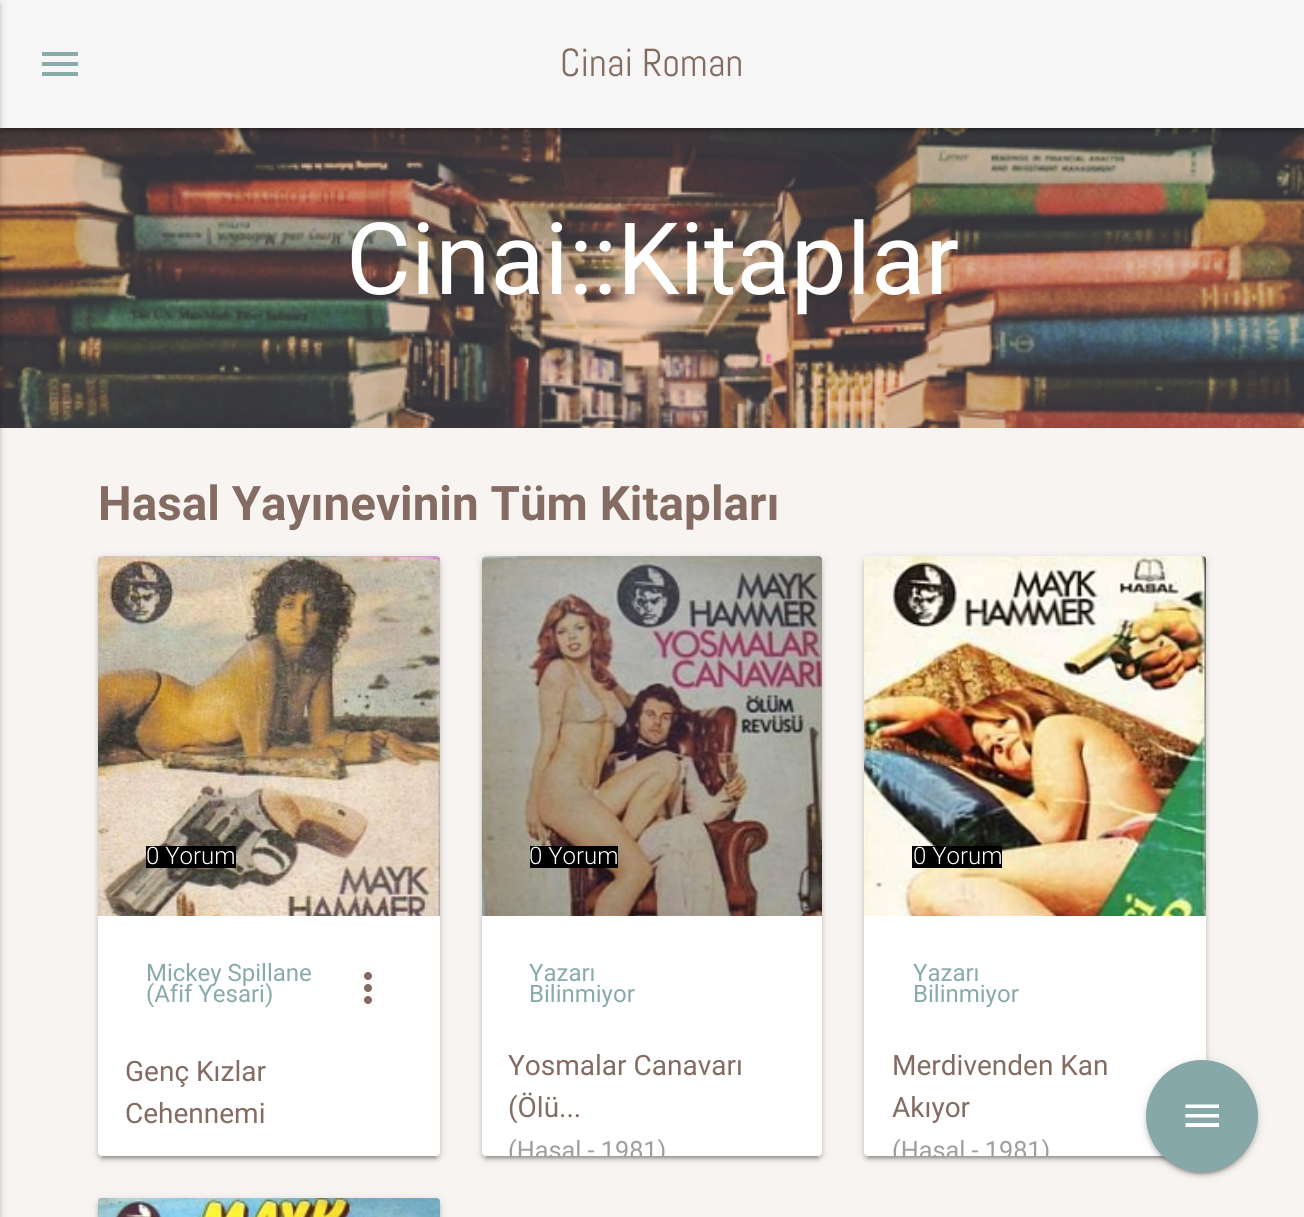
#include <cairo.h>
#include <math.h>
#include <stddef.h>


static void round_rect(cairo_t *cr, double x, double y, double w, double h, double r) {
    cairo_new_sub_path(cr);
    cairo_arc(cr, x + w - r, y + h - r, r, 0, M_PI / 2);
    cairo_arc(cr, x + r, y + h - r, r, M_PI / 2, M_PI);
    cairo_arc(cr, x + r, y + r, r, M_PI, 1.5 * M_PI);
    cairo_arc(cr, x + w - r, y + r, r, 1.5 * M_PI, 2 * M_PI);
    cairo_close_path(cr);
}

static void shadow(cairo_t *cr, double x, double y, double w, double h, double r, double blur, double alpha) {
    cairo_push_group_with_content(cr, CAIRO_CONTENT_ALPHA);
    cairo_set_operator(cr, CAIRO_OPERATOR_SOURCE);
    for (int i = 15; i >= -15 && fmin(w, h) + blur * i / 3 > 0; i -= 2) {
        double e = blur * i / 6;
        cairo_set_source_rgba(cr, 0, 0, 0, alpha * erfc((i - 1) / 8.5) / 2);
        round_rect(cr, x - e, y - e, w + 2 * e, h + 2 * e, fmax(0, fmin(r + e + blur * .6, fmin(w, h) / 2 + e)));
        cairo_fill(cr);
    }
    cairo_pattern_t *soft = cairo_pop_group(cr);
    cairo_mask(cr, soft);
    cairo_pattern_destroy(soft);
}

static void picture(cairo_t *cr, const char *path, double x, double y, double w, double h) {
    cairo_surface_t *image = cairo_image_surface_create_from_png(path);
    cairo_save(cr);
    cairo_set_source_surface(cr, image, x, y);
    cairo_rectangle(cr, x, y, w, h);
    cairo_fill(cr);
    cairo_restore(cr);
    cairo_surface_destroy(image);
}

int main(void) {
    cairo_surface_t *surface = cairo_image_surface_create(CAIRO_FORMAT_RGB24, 1304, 1217);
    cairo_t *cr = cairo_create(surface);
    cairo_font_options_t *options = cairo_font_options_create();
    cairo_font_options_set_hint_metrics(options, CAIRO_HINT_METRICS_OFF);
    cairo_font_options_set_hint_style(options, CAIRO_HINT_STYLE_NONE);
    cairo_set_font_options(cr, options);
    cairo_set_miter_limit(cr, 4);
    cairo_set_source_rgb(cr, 0.965, 0.957, 0.945);
    cairo_paint(cr);
    picture(cr, "img1.png", 0, 128, 1304, 300);
    cairo_set_source_rgb(cr, 0, 0, 0);
    shadow(cr, 4, 10, 1296, 120, 0, 1, 0.2);
    shadow(cr, 0, 2, 1304, 128, 0, 5, 0.12);
    shadow(cr, 0, 4, 1304, 128, 0, 2, 0.14);
    cairo_set_source_rgb(cr, 0.961, 0.961, 0.961);
    cairo_rectangle(cr, 0, 0, 1304, 128);
    cairo_fill(cr);
    cairo_set_source_rgb(cr, 0, 0, 0);
    shadow(cr, -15, 2, 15, 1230, 0, 5, 0.12);
    shadow(cr, -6, 4, 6, 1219, 0, 2, 0.14);
    cairo_set_source_rgb(cr, 0.533, 0.667, 0.663);
    cairo_new_path(cr);
    cairo_move_to(cr, 42, 52);
    cairo_line_to(cr, 78, 52);
    cairo_line_to(cr, 78, 56);
    cairo_line_to(cr, 42, 56);
    cairo_close_path(cr);
    cairo_move_to(cr, 42, 66);
    cairo_line_to(cr, 42, 62);
    cairo_line_to(cr, 78, 62);
    cairo_line_to(cr, 78, 66);
    cairo_close_path(cr);
    cairo_move_to(cr, 42, 76);
    cairo_line_to(cr, 42, 72);
    cairo_line_to(cr, 78, 72);
    cairo_line_to(cr, 78, 76);
    cairo_close_path(cr);
    cairo_fill(cr);
    cairo_select_font_face(cr, "Abel", CAIRO_FONT_SLANT_NORMAL, CAIRO_FONT_WEIGHT_NORMAL);
    cairo_set_font_size(cr, 39);
    cairo_set_source_rgb(cr, 0.518, 0.424, 0.388);
    cairo_move_to(cr, 560, 76);
    cairo_show_text(cr, "Cinai Roman");
    cairo_select_font_face(cr, "Roboto", CAIRO_FONT_SLANT_NORMAL, CAIRO_FONT_WEIGHT_NORMAL);
    cairo_set_font_size(cr, 99.75);
    cairo_set_source_rgb(cr, 1, 1, 1);
    cairo_move_to(cr, 346, 294);
    cairo_show_text(cr, "Cinai::Kitaplar");
    cairo_select_font_face(cr, "Roboto", CAIRO_FONT_SLANT_NORMAL, CAIRO_FONT_WEIGHT_BOLD);
    cairo_set_font_size(cr, 47.6);
    cairo_set_source_rgb(cr, 0.518, 0.424, 0.388);
    cairo_move_to(cr, 98, 520);
    cairo_show_text(cr, "Hasal Yayınevinin Tüm Kitapları");
    cairo_set_source_rgb(cr, 0, 0, 0);
    shadow(cr, 102, 566, 334, 592, 0, 1, 0.2);
    shadow(cr, 98, 558, 342, 600, 4, 5, 0.12);
    shadow(cr, 98, 560, 342, 600, 4, 2, 0.14);
    cairo_set_source_rgb(cr, 1, 1, 1);
    round_rect(cr, 98, 556, 342, 600, 4);
    cairo_fill(cr);
    picture(cr, "img2.png", 98, 556, 342, 360);
    cairo_set_source_rgb(cr, 0, 0, 0);
    cairo_rectangle(cr, 146, 846, 90, 22);
    cairo_fill(cr);
    cairo_select_font_face(cr, "Roboto Light", CAIRO_FONT_SLANT_NORMAL, CAIRO_FONT_WEIGHT_NORMAL);
    cairo_set_font_size(cr, 24);
    cairo_set_source_rgb(cr, 1, 1, 1);
    cairo_move_to(cr, 146, 864);
    cairo_show_text(cr, "0 Yorum");
    cairo_select_font_face(cr, "Roboto", CAIRO_FONT_SLANT_NORMAL, CAIRO_FONT_WEIGHT_NORMAL);
    cairo_set_source_rgb(cr, 0.533, 0.667, 0.663);
    cairo_move_to(cr, 146, 981);
    cairo_show_text(cr, "Mickey Spillane");
    cairo_move_to(cr, 146, 1002);
    cairo_show_text(cr, "(Afif Yesari)");
    picture(cr, "img3.png", 364, 972, 8, 32);
    cairo_set_font_size(cr, 28);
    cairo_set_source_rgb(cr, 0.518, 0.424, 0.388);
    cairo_move_to(cr, 125, 1081);
    cairo_show_text(cr, "Genç Kızlar");
    cairo_move_to(cr, 125, 1123);
    cairo_show_text(cr, "Cehennemi");
    cairo_set_source_rgb(cr, 0, 0, 0);
    shadow(cr, 486, 566, 332, 592, 0, 1, 0.2);
    shadow(cr, 482, 558, 340, 600, 4, 5, 0.12);
    shadow(cr, 482, 560, 340, 600, 4, 2, 0.14);
    cairo_set_source_rgb(cr, 1, 1, 1);
    round_rect(cr, 482, 556, 340, 600, 4);
    cairo_fill(cr);
    picture(cr, "img4.png", 482, 556, 340, 360);
    cairo_set_source_rgb(cr, 0, 0, 0);
    cairo_rectangle(cr, 530, 846, 88, 22);
    cairo_fill(cr);
    cairo_select_font_face(cr, "Roboto Light", CAIRO_FONT_SLANT_NORMAL, CAIRO_FONT_WEIGHT_NORMAL);
    cairo_set_font_size(cr, 24);
    cairo_set_source_rgb(cr, 1, 1, 1);
    cairo_move_to(cr, 529, 864);
    cairo_show_text(cr, "0 Yorum");
    cairo_select_font_face(cr, "Roboto", CAIRO_FONT_SLANT_NORMAL, CAIRO_FONT_WEIGHT_NORMAL);
    cairo_set_source_rgb(cr, 0.533, 0.667, 0.663);
    cairo_move_to(cr, 529, 981);
    cairo_show_text(cr, "Yazarı");
    cairo_move_to(cr, 529, 1002);
    cairo_show_text(cr, "Bilinmiyor");
    cairo_set_font_size(cr, 28);
    cairo_set_source_rgb(cr, 0.518, 0.424, 0.388);
    cairo_move_to(cr, 508, 1075);
    cairo_show_text(cr, "Yosmalar Canavarı");
    cairo_move_to(cr, 508, 1117);
    cairo_show_text(cr, "(Ölü...");
    cairo_save(cr);
    cairo_new_path(cr);
    cairo_move_to(cr, 482, 916);
    cairo_line_to(cr, 822, 916);
    cairo_line_to(cr, 822, 1152);
    cairo_curve_to(cr, 822, 1154, 820, 1156, 818, 1156);
    cairo_line_to(cr, 486, 1156);
    cairo_curve_to(cr, 484, 1156, 482, 1154, 482, 1152);
    cairo_close_path(cr);
    cairo_clip(cr);
    cairo_set_font_size(cr, 25.25);
    cairo_set_source_rgb(cr, 0.62, 0.62, 0.62);
    cairo_move_to(cr, 508, 1159);
    cairo_show_text(cr, "(Hasal - 1981)");
    cairo_restore(cr);
    cairo_set_source_rgb(cr, 0, 0, 0);
    shadow(cr, 868, 566, 334, 592, 0, 1, 0.2);
    shadow(cr, 864, 558, 342, 600, 4, 5, 0.12);
    shadow(cr, 864, 560, 342, 600, 4, 2, 0.14);
    cairo_set_source_rgb(cr, 1, 1, 1);
    round_rect(cr, 864, 556, 342, 600, 4);
    cairo_fill(cr);
    picture(cr, "img5.png", 864, 556, 342, 360);
    cairo_set_source_rgb(cr, 0, 0, 0);
    cairo_rectangle(cr, 912, 846, 90, 22);
    cairo_fill(cr);
    cairo_select_font_face(cr, "Roboto Light", CAIRO_FONT_SLANT_NORMAL, CAIRO_FONT_WEIGHT_NORMAL);
    cairo_set_font_size(cr, 24);
    cairo_set_source_rgb(cr, 1, 1, 1);
    cairo_move_to(cr, 913, 864);
    cairo_show_text(cr, "0 Yorum");
    cairo_select_font_face(cr, "Roboto", CAIRO_FONT_SLANT_NORMAL, CAIRO_FONT_WEIGHT_NORMAL);
    cairo_set_source_rgb(cr, 0.533, 0.667, 0.663);
    cairo_move_to(cr, 913, 981);
    cairo_show_text(cr, "Yazarı");
    cairo_move_to(cr, 913, 1002);
    cairo_show_text(cr, "Bilinmiyor");
    cairo_set_font_size(cr, 28);
    cairo_set_source_rgb(cr, 0.518, 0.424, 0.388);
    cairo_move_to(cr, 892, 1075);
    cairo_show_text(cr, "Merdivenden Kan");
    cairo_move_to(cr, 892, 1117);
    cairo_show_text(cr, "Akıyor");
    cairo_save(cr);
    cairo_new_path(cr);
    cairo_move_to(cr, 864, 916);
    cairo_line_to(cr, 1206, 916);
    cairo_line_to(cr, 1206, 1152);
    cairo_curve_to(cr, 1206, 1154, 1204, 1156, 1202, 1156);
    cairo_line_to(cr, 868, 1156);
    cairo_curve_to(cr, 866, 1156, 864, 1154, 864, 1152);
    cairo_close_path(cr);
    cairo_clip(cr);
    cairo_set_font_size(cr, 25.25);
    cairo_set_source_rgb(cr, 0.62, 0.62, 0.62);
    cairo_move_to(cr, 892, 1159);
    cairo_show_text(cr, "(Hasal - 1981)");
    cairo_restore(cr);
    cairo_set_source_rgb(cr, 0, 0, 0);
    shadow(cr, 98, 1200, 342, 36, 4, 5, 0.12);
    shadow(cr, 98, 1202, 342, 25, 4, 2, 0.14);
    picture(cr, "img6.png", 98, 1198, 342, 19);
    shadow(cr, 1150, 1070, 104, 104, 52, 1, 0.2);
    shadow(cr, 1146, 1062, 112, 112, 56, 5, 0.12);
    shadow(cr, 1146, 1064, 112, 112, 56, 2, 0.14);
    cairo_set_source_rgb(cr, 0.525, 0.659, 0.659);
    cairo_arc(cr, 1202, 1116, 56, 0, 2 * M_PI);
    cairo_fill(cr);
    cairo_set_source_rgb(cr, 1, 1, 1);
    cairo_new_path(cr);
    cairo_move_to(cr, 1185.5, 1104.5);
    cairo_line_to(cr, 1219, 1104.5);
    cairo_line_to(cr, 1219, 1108);
    cairo_line_to(cr, 1185.5, 1108);
    cairo_close_path(cr);
    cairo_move_to(cr, 1185.5, 1117.5);
    cairo_line_to(cr, 1185.5, 1114);
    cairo_line_to(cr, 1219, 1114);
    cairo_line_to(cr, 1219, 1117.5);
    cairo_close_path(cr);
    cairo_move_to(cr, 1185.5, 1127);
    cairo_line_to(cr, 1185.5, 1123);
    cairo_line_to(cr, 1219, 1123);
    cairo_line_to(cr, 1219, 1127);
    cairo_close_path(cr);
    cairo_fill(cr);
    cairo_surface_write_to_png(surface, "page.png");
    cairo_font_options_destroy(options);
    cairo_destroy(cr);
    cairo_surface_destroy(surface);
    return 0;
}
